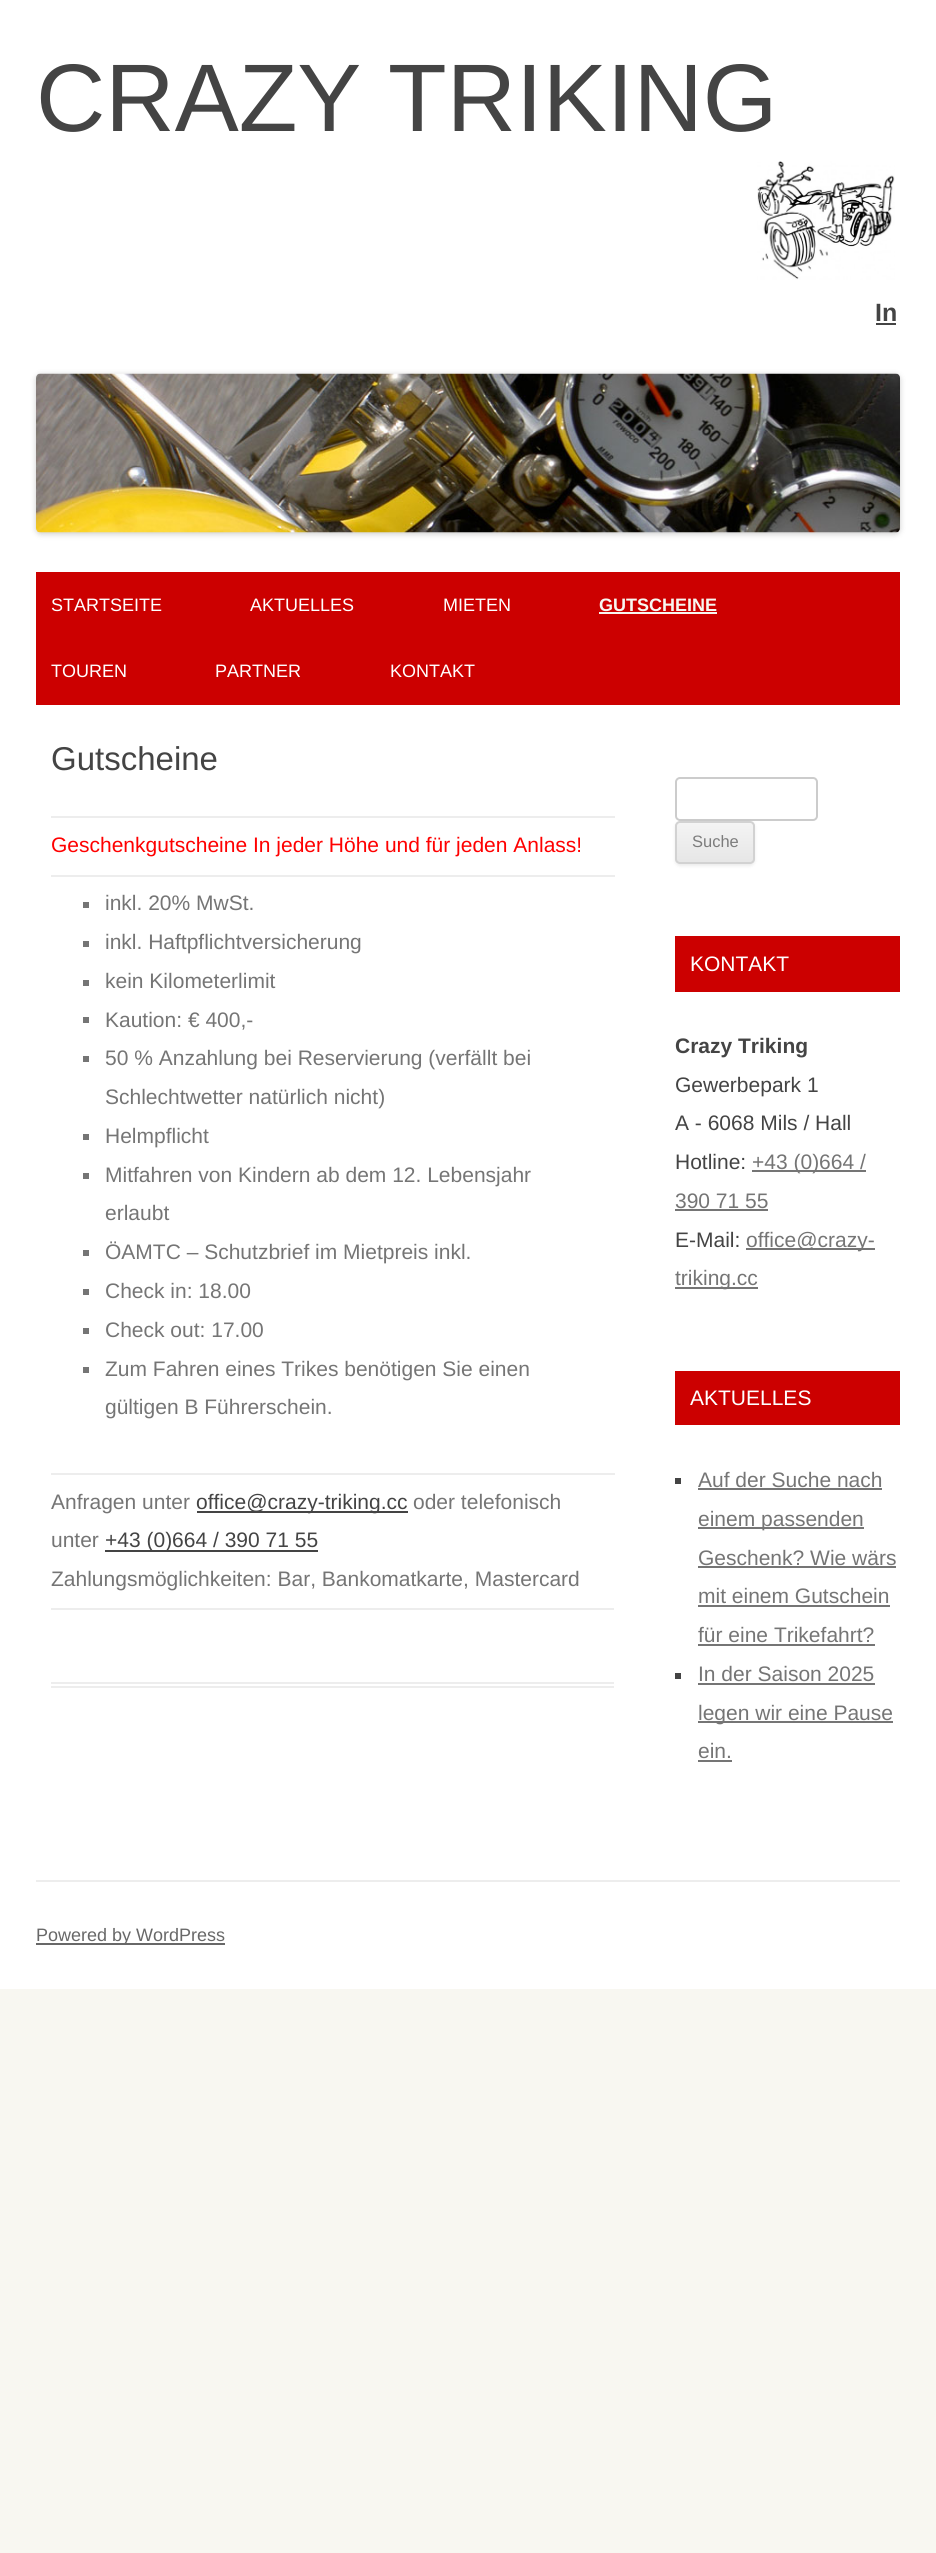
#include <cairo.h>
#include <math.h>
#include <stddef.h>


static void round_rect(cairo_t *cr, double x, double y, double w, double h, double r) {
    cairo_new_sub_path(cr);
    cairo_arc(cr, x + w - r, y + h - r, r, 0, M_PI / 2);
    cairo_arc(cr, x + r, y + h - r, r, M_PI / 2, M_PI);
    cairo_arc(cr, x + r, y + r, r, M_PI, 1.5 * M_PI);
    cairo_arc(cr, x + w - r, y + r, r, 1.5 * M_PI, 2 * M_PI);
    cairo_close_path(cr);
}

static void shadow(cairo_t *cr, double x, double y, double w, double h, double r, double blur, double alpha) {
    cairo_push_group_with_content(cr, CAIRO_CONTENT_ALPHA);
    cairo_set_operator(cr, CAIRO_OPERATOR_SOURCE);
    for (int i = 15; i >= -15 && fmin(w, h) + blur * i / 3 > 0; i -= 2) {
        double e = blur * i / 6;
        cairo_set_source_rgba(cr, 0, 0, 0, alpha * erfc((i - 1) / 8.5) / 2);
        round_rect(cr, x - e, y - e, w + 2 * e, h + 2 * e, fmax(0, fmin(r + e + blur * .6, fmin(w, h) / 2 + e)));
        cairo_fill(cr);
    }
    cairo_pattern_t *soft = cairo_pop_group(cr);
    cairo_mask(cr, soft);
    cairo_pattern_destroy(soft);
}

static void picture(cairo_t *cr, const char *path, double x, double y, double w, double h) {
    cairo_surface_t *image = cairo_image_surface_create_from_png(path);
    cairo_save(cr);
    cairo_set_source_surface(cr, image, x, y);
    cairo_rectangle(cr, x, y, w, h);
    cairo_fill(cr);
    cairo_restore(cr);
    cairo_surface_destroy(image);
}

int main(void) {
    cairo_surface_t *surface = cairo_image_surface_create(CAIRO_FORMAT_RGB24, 936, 2553);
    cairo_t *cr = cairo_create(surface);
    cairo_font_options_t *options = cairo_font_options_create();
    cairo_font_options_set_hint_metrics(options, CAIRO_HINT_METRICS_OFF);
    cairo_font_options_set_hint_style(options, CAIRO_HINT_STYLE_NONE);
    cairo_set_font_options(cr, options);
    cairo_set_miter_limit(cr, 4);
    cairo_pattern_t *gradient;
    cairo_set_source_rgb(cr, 0.969, 0.965, 0.945);
    cairo_paint(cr);
    cairo_set_source_rgb(cr, 1, 1, 1);
    cairo_rectangle(cr, 0, 0, 936, 1989);
    cairo_fill(cr);
    cairo_select_font_face(cr, "Liberation Sans", CAIRO_FONT_SLANT_NORMAL, CAIRO_FONT_WEIGHT_NORMAL);
    cairo_set_font_size(cr, 96);
    cairo_set_source_rgb(cr, 0.267, 0.267, 0.267);
    cairo_move_to(cr, 36, 131);
    cairo_show_text(cr, "CRAZY TRIKING");
    picture(cr, "img1.png", 757, 161, 138, 119);
    cairo_save(cr);
    cairo_rectangle(cr, 41, 302, 855, 25);
    cairo_clip(cr);
    cairo_select_font_face(cr, "Liberation Sans", CAIRO_FONT_SLANT_NORMAL, CAIRO_FONT_WEIGHT_BOLD);
    cairo_set_font_size(cr, 25);
    cairo_move_to(cr, 875, 321);
    cairo_show_text(cr, "In");
    cairo_restore(cr);
    cairo_rectangle(cr, 876, 323, 20, 2);
    cairo_fill(cr);
    cairo_set_source_rgb(cr, 0, 0, 0);
    shadow(cr, 36, 375, 864, 159, 5, 3, 0.2);
    picture(cr, "img2.png", 36, 373, 864, 160);
    cairo_set_source_rgb(cr, 0.8, 0, 0);
    cairo_rectangle(cr, 36, 572, 864, 133);
    cairo_fill(cr);
    cairo_set_font_size(cr, 18);
    cairo_set_source_rgb(cr, 1, 1, 1);
    cairo_move_to(cr, 51, 611);
    cairo_show_text(cr, "STARTSEITE");
    cairo_move_to(cr, 250, 611);
    cairo_show_text(cr, "AKTUELLES");
    cairo_move_to(cr, 443, 611);
    cairo_show_text(cr, "MIETEN");
    cairo_select_font_face(cr, "Liberation Sans", CAIRO_FONT_SLANT_NORMAL, CAIRO_FONT_WEIGHT_BOLD);
    cairo_set_source_rgb(cr, 0.969, 0.965, 0.945);
    cairo_move_to(cr, 599, 611);
    cairo_show_text(cr, "GUTSCHEINE");
    cairo_rectangle(cr, 599, 612, 118, 2);
    cairo_fill(cr);
    cairo_select_font_face(cr, "Liberation Sans", CAIRO_FONT_SLANT_NORMAL, CAIRO_FONT_WEIGHT_NORMAL);
    cairo_set_source_rgb(cr, 1, 1, 1);
    cairo_move_to(cr, 51, 677);
    cairo_show_text(cr, "TOUREN");
    cairo_move_to(cr, 215, 677);
    cairo_show_text(cr, "PARTNER");
    cairo_move_to(cr, 390, 677);
    cairo_show_text(cr, "KONTAKT");
    cairo_set_source_rgb(cr, 0.929, 0.929, 0.929);
    cairo_rectangle(cr, 51, 1682, 563, 2);
    cairo_fill(cr);
    cairo_rectangle(cr, 51, 1686, 563, 2);
    cairo_fill(cr);
    cairo_set_font_size(cr, 33);
    cairo_set_source_rgb(cr, 0.267, 0.267, 0.267);
    cairo_move_to(cr, 51, 770);
    cairo_show_text(cr, "Gutscheine");
    cairo_set_source_rgb(cr, 0.929, 0.929, 0.929);
    cairo_rectangle(cr, 51, 1608, 563, 2);
    cairo_fill(cr);
    cairo_rectangle(cr, 51, 816, 564, 2);
    cairo_fill(cr);
    cairo_set_font_size(cr, 21);
    cairo_set_source_rgb(cr, 1, 0, 0);
    cairo_move_to(cr, 51, 852);
    cairo_show_text(cr, "Geschenkgutscheine In jeder Höhe und für jeden Anlass!");
    cairo_set_source_rgb(cr, 0.929, 0.929, 0.929);
    cairo_rectangle(cr, 51, 875, 564, 2);
    cairo_fill(cr);
    cairo_set_source_rgb(cr, 0.459, 0.459, 0.459);
    cairo_rectangle(cr, 83, 902, 6, 6);
    cairo_fill(cr);
    cairo_move_to(cr, 105, 910);
    cairo_show_text(cr, "inkl. 20% MwSt.");
    cairo_rectangle(cr, 83, 941, 6, 6);
    cairo_fill(cr);
    cairo_move_to(cr, 105, 949);
    cairo_show_text(cr, "inkl. Haftpflichtversicherung");
    cairo_rectangle(cr, 83, 980, 6, 6);
    cairo_fill(cr);
    cairo_move_to(cr, 105, 988);
    cairo_show_text(cr, "kein Kilometerlimit");
    cairo_rectangle(cr, 83, 1017, 6, 6);
    cairo_fill(cr);
    cairo_move_to(cr, 105, 1027);
    cairo_show_text(cr, "Kaution: € 400,-");
    cairo_rectangle(cr, 83, 1056, 6, 6);
    cairo_fill(cr);
    cairo_move_to(cr, 105, 1065);
    cairo_show_text(cr, "50 % Anzahlung bei Reservierung (verfällt bei");
    cairo_move_to(cr, 105, 1104);
    cairo_show_text(cr, "Schlechtwetter natürlich nicht)");
    cairo_rectangle(cr, 83, 1134, 6, 6);
    cairo_fill(cr);
    cairo_move_to(cr, 105, 1143);
    cairo_show_text(cr, "Helmpflicht");
    cairo_rectangle(cr, 83, 1173, 6, 6);
    cairo_fill(cr);
    cairo_move_to(cr, 105, 1182);
    cairo_show_text(cr, "Mitfahren von Kindern ab dem 12. Lebensjahr");
    cairo_move_to(cr, 105, 1220);
    cairo_show_text(cr, "erlaubt");
    cairo_rectangle(cr, 83, 1250, 6, 6);
    cairo_fill(cr);
    cairo_move_to(cr, 105, 1259);
    cairo_show_text(cr, "ÖAMTC – Schutzbrief im Mietpreis inkl.");
    cairo_rectangle(cr, 83, 1289, 6, 6);
    cairo_fill(cr);
    cairo_move_to(cr, 105, 1298);
    cairo_show_text(cr, "Check in: 18.00");
    cairo_rectangle(cr, 83, 1328, 6, 6);
    cairo_fill(cr);
    cairo_move_to(cr, 105, 1337);
    cairo_show_text(cr, "Check out: 17.00");
    cairo_rectangle(cr, 83, 1367, 6, 6);
    cairo_fill(cr);
    cairo_move_to(cr, 105, 1376);
    cairo_show_text(cr, "Zum Fahren eines Trikes benötigen Sie einen");
    cairo_move_to(cr, 105, 1414);
    cairo_show_text(cr, "gültigen B Führerschein.");
    cairo_set_source_rgb(cr, 0.929, 0.929, 0.929);
    cairo_rectangle(cr, 51, 1473, 564, 2);
    cairo_fill(cr);
    cairo_set_source_rgb(cr, 0.459, 0.459, 0.459);
    cairo_move_to(cr, 51, 1509);
    cairo_show_text(cr, "Anfragen unter");
    cairo_set_source_rgb(cr, 0.267, 0.267, 0.267);
    cairo_rectangle(cr, 197, 1511, 211, 2);
    cairo_fill(cr);
    cairo_move_to(cr, 196, 1509);
    cairo_show_text(cr, "office@crazy-triking.cc");
    cairo_set_source_rgb(cr, 0.459, 0.459, 0.459);
    cairo_move_to(cr, 413, 1509);
    cairo_show_text(cr, "oder telefonisch");
    cairo_move_to(cr, 51, 1547);
    cairo_show_text(cr, "unter");
    cairo_set_source_rgb(cr, 0.267, 0.267, 0.267);
    cairo_rectangle(cr, 105, 1550, 213, 2);
    cairo_fill(cr);
    cairo_move_to(cr, 105, 1547);
    cairo_show_text(cr, "+43 (0)664 / 390 71 55");
    cairo_set_source_rgb(cr, 0.459, 0.459, 0.459);
    cairo_move_to(cr, 51, 1586);
    cairo_show_text(cr, "Zahlungsmöglichkeiten: Bar, Bankomatkarte, Mastercard");
    round_rect(cr, 676, 778, 141, 42, 4);
    cairo_set_source_rgb(cr, 0.8, 0.8, 0.8);
    cairo_stroke(cr);
    cairo_set_source_rgb(cr, 0.251, 0.251, 0.251);
    shadow(cr, 675, 822, 80, 44, 5, 1.5, 0.1);
    cairo_save(cr);
    round_rect(cr, 675, 821, 80, 43, 5);
    cairo_clip(cr);
    gradient = cairo_pattern_create_linear(715, 822, 715, 863);
    cairo_pattern_add_color_stop_rgba(gradient, 0, 0.957, 0.957, 0.957, 1);
    cairo_pattern_add_color_stop_rgba(gradient, 1, 0.902, 0.902, 0.902, 1);
    cairo_set_source(cr, gradient);
    cairo_pattern_destroy(gradient);
    cairo_rectangle(cr, 675, 822, 80, 41);
    cairo_fill(cr);
    cairo_restore(cr);
    round_rect(cr, 676, 822, 78, 41, 4);
    cairo_set_source_rgb(cr, 0.824, 0.824, 0.824);
    cairo_stroke(cr);
    cairo_set_font_size(cr, 16.5);
    cairo_set_source_rgb(cr, 0.486, 0.486, 0.486);
    cairo_move_to(cr, 692, 847);
    cairo_show_text(cr, "Suche");
    cairo_set_source_rgb(cr, 0.8, 0, 0);
    cairo_rectangle(cr, 675, 936, 225, 56);
    cairo_fill(cr);
    cairo_set_font_size(cr, 21);
    cairo_set_source_rgb(cr, 1, 1, 1);
    cairo_move_to(cr, 690, 971);
    cairo_show_text(cr, "KONTAKT");
    cairo_select_font_face(cr, "Liberation Sans", CAIRO_FONT_SLANT_NORMAL, CAIRO_FONT_WEIGHT_BOLD);
    cairo_set_source_rgb(cr, 0.267, 0.267, 0.267);
    cairo_move_to(cr, 675, 1053);
    cairo_show_text(cr, "Crazy Triking");
    cairo_select_font_face(cr, "Liberation Sans", CAIRO_FONT_SLANT_NORMAL, CAIRO_FONT_WEIGHT_NORMAL);
    cairo_move_to(cr, 675, 1092);
    cairo_show_text(cr, "Gewerbepark 1");
    cairo_move_to(cr, 675, 1130);
    cairo_show_text(cr, "A - 6068 Mils / Hall");
    cairo_move_to(cr, 675, 1169);
    cairo_show_text(cr, "Hotline:");
    cairo_set_source_rgb(cr, 0.459, 0.459, 0.459);
    cairo_rectangle(cr, 752, 1170, 114, 2);
    cairo_fill(cr);
    cairo_move_to(cr, 752, 1169);
    cairo_show_text(cr, "+43 (0)664 /");
    cairo_move_to(cr, 675, 1208);
    cairo_show_text(cr, "390 71 55");
    cairo_rectangle(cr, 675, 1209, 93, 2);
    cairo_fill(cr);
    cairo_set_source_rgb(cr, 0.267, 0.267, 0.267);
    cairo_move_to(cr, 675, 1247);
    cairo_show_text(cr, "E-Mail:");
    cairo_set_source_rgb(cr, 0.459, 0.459, 0.459);
    cairo_rectangle(cr, 746, 1248, 129, 2);
    cairo_fill(cr);
    cairo_move_to(cr, 746, 1247);
    cairo_show_text(cr, "office@crazy-");
    cairo_rectangle(cr, 675, 1287, 83, 2);
    cairo_fill(cr);
    cairo_move_to(cr, 675, 1285);
    cairo_show_text(cr, "triking.cc");
    cairo_set_source_rgb(cr, 0.8, 0, 0);
    cairo_rectangle(cr, 675, 1371, 225, 54);
    cairo_fill(cr);
    cairo_set_source_rgb(cr, 1, 1, 1);
    cairo_move_to(cr, 690, 1405);
    cairo_show_text(cr, "AKTUELLES");
    cairo_set_source_rgb(cr, 0.267, 0.267, 0.267);
    cairo_rectangle(cr, 675, 1478, 6, 6);
    cairo_fill(cr);
    cairo_set_source_rgb(cr, 0.459, 0.459, 0.459);
    cairo_move_to(cr, 698, 1487);
    cairo_show_text(cr, "Auf der Suche nach");
    cairo_rectangle(cr, 698, 1488, 184, 2);
    cairo_fill(cr);
    cairo_rectangle(cr, 698, 1527, 166, 2);
    cairo_fill(cr);
    cairo_move_to(cr, 698, 1526);
    cairo_show_text(cr, "einem passenden");
    cairo_move_to(cr, 698, 1565);
    cairo_show_text(cr, "Geschenk? Wie wärs");
    cairo_rectangle(cr, 698, 1566, 198, 2);
    cairo_fill(cr);
    cairo_move_to(cr, 698, 1603);
    cairo_show_text(cr, "mit einem Gutschein");
    cairo_rectangle(cr, 698, 1605, 192, 2);
    cairo_fill(cr);
    cairo_move_to(cr, 698, 1642);
    cairo_show_text(cr, "für eine Trikefahrt?");
    cairo_rectangle(cr, 698, 1644, 177, 2);
    cairo_fill(cr);
    cairo_set_source_rgb(cr, 0.267, 0.267, 0.267);
    cairo_rectangle(cr, 675, 1673, 6, 6);
    cairo_fill(cr);
    cairo_set_source_rgb(cr, 0.459, 0.459, 0.459);
    cairo_move_to(cr, 698, 1681);
    cairo_show_text(cr, "In der Saison 2025");
    cairo_rectangle(cr, 698, 1683, 177, 2);
    cairo_fill(cr);
    cairo_rectangle(cr, 698, 1721, 195, 2);
    cairo_fill(cr);
    cairo_move_to(cr, 698, 1720);
    cairo_show_text(cr, "legen wir eine Pause");
    cairo_move_to(cr, 698, 1758);
    cairo_show_text(cr, "ein.");
    cairo_rectangle(cr, 698, 1760, 34, 2);
    cairo_fill(cr);
    cairo_set_source_rgb(cr, 0.929, 0.929, 0.929);
    cairo_rectangle(cr, 36, 1880, 864, 2);
    cairo_fill(cr);
    cairo_set_source_rgb(cr, 0.408, 0.408, 0.408);
    cairo_rectangle(cr, 36, 1943, 189, 2);
    cairo_fill(cr);
    cairo_set_font_size(cr, 18);
    cairo_move_to(cr, 36, 1941);
    cairo_show_text(cr, "Powered by WordPress");
    cairo_surface_write_to_png(surface, "page.png");
    cairo_font_options_destroy(options);
    cairo_destroy(cr);
    cairo_surface_destroy(surface);
    return 0;
}
